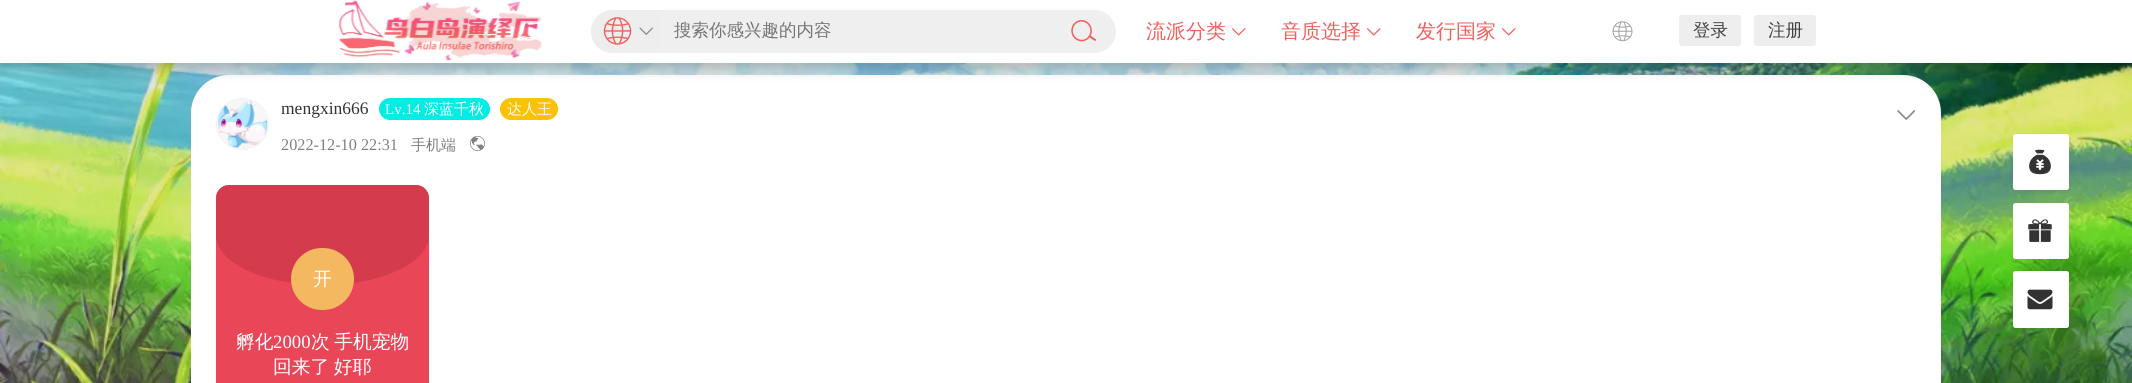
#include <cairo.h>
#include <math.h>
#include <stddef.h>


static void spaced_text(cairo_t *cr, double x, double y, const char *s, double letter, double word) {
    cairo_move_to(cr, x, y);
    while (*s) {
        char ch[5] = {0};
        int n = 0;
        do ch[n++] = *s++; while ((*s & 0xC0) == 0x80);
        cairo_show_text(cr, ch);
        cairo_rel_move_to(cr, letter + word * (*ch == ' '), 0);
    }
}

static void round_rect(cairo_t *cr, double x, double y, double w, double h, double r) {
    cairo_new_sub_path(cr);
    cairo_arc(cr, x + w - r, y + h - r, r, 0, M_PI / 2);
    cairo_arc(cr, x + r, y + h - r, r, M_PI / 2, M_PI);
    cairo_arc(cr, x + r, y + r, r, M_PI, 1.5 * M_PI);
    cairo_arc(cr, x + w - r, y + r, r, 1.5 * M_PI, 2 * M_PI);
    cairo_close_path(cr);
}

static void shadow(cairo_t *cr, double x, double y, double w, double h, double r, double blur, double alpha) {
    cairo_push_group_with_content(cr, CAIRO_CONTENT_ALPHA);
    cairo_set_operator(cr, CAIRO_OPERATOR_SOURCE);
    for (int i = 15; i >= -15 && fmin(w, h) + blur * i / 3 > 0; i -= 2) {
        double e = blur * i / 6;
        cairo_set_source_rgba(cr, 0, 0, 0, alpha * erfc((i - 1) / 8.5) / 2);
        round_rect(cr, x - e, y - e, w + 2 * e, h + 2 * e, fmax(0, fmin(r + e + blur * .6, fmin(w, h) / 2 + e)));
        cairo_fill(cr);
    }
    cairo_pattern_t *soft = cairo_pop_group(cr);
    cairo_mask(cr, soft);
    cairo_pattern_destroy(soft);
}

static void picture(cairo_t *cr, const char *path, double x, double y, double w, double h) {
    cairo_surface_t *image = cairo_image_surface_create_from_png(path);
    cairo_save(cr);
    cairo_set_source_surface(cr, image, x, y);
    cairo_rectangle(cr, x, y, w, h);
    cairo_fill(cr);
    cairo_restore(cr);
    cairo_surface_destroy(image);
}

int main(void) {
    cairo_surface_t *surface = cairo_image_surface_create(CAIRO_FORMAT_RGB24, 2132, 383);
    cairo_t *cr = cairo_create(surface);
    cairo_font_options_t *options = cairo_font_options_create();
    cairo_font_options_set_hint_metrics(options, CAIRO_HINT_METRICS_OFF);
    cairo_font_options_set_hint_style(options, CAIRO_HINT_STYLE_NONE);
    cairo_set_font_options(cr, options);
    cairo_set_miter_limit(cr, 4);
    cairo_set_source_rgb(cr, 1, 1, 1);
    cairo_paint(cr);
    picture(cr, "img1.png", 0, 63, 2132, 320);
    cairo_set_source_rgb(cr, 1, 1, 1);
    round_rect(cr, 191, 75, 1750, 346, 38);
    cairo_fill(cr);
    cairo_set_source_rgb(cr, 0, 0, 0);
    shadow(cr, -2, 3, 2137, 67, 0, 6, 0.2);
    cairo_set_source_rgb(cr, 1, 1, 1);
    cairo_rectangle(cr, 0, 0, 2132, 63);
    cairo_fill(cr);
    picture(cr, "img2.png", 339, 0, 203, 61);
    cairo_set_source_rgb(cr, 0.937, 0.937, 0.937);
    round_rect(cr, 591, 10, 525, 43, 21.5);
    cairo_fill(cr);
    cairo_set_source_rgb(cr, 0.933, 0.933, 0.933);
    cairo_new_path(cr);
    cairo_move_to(cr, 612.5, 10);
    cairo_line_to(cr, 661, 10);
    cairo_line_to(cr, 661, 53);
    cairo_line_to(cr, 612.5, 53);
    cairo_curve_to(cr, 600.5, 53, 591, 43.5, 591, 31.5);
    cairo_curve_to(cr, 591, 19.5, 600.5, 10, 612.5, 10);
    cairo_close_path(cr);
    cairo_fill(cr);
    picture(cr, "img3.png", 603, 17, 29, 28);
    picture(cr, "img4.png", 639, 27, 14, 8);
    cairo_select_font_face(cr, "WenQuanYi Zen Hei Medium", CAIRO_FONT_SLANT_NORMAL, CAIRO_FONT_WEIGHT_NORMAL);
    cairo_set_font_size(cr, 17.5);
    cairo_set_source_rgb(cr, 0.459, 0.459, 0.459);
    cairo_move_to(cr, 674, 36);
    cairo_show_text(cr, "搜索你感兴趣的内容");
    picture(cr, "img5.png", 1071, 20, 26, 22);
    cairo_set_font_size(cr, 20);
    cairo_set_source_rgb(cr, 0.945, 0.376, 0.361);
    cairo_move_to(cr, 1146, 38);
    cairo_show_text(cr, "流派分类");
    picture(cr, "img6.png", 1232, 28, 14, 8);
    cairo_move_to(cr, 1281, 38);
    cairo_show_text(cr, "音质选择");
    picture(cr, "img6.png", 1367, 28, 14, 8);
    cairo_move_to(cr, 1416, 38);
    cairo_show_text(cr, "发行国家");
    picture(cr, "img6.png", 1502, 28, 14, 8);
    picture(cr, "img7.png", 1612, 21, 21, 21);
    cairo_set_source_rgb(cr, 0.933, 0.933, 0.933);
    round_rect(cr, 1679, 15, 62, 31, 2.5);
    cairo_fill(cr);
    cairo_set_font_size(cr, 17.5);
    cairo_set_source_rgb(cr, 0.251, 0.251, 0.251);
    cairo_move_to(cr, 1693, 36);
    cairo_show_text(cr, "登录");
    cairo_set_source_rgb(cr, 0.933, 0.933, 0.933);
    round_rect(cr, 1754, 15, 62, 31, 2.5);
    cairo_fill(cr);
    cairo_set_source_rgb(cr, 0.251, 0.251, 0.251);
    cairo_move_to(cr, 1768, 36);
    cairo_show_text(cr, "注册");
    cairo_set_source_rgb(cr, 0.965, 0.965, 0.965);
    round_rect(cr, 216.5, 98.5, 52, 51, 25.5);
    cairo_fill_preserve(cr);
    cairo_set_source_rgb(cr, 0.953, 0.953, 0.953);
    cairo_set_line_width(cr, 1);
    cairo_stroke(cr);
    picture(cr, "img8.png", 217, 100, 51, 48);
    cairo_select_font_face(cr, "Liberation Serif", CAIRO_FONT_SLANT_NORMAL, CAIRO_FONT_WEIGHT_NORMAL);
    cairo_set_source_rgb(cr, 0.2, 0.2, 0.2);
    cairo_move_to(cr, 281, 114);
    cairo_show_text(cr, "mengxin666");
    cairo_set_source_rgb(cr, 0, 0.929, 0.898);
    round_rect(cr, 379, 98, 111, 22, 11);
    cairo_fill(cr);
    cairo_set_font_size(cr, 15);
    cairo_set_source_rgb(cr, 1, 1, 1);
    cairo_move_to(cr, 385, 114);
    cairo_show_text(cr, "Lv.14");
    cairo_select_font_face(cr, "WenQuanYi Zen Hei Medium", CAIRO_FONT_SLANT_NORMAL, CAIRO_FONT_WEIGHT_NORMAL);
    cairo_move_to(cr, 424, 114);
    cairo_show_text(cr, "深蓝千秋");
    cairo_set_source_rgb(cr, 0.988, 0.757, 0);
    round_rect(cr, 500, 98, 58, 22, 11);
    cairo_fill(cr);
    cairo_set_source_rgb(cr, 1, 1, 1);
    cairo_move_to(cr, 507, 114);
    cairo_show_text(cr, "达人王");
    cairo_select_font_face(cr, "Liberation Serif", CAIRO_FONT_SLANT_NORMAL, CAIRO_FONT_WEIGHT_NORMAL);
    cairo_set_font_size(cr, 16.25);
    cairo_set_source_rgb(cr, 0.502, 0.502, 0.502);
    cairo_move_to(cr, 281, 150);
    cairo_show_text(cr, "2022-12-10 22:31");
    cairo_select_font_face(cr, "WenQuanYi Zen Hei Medium", CAIRO_FONT_SLANT_NORMAL, CAIRO_FONT_WEIGHT_NORMAL);
    cairo_set_font_size(cr, 15);
    cairo_move_to(cr, 411, 150);
    cairo_show_text(cr, "手机端");
    picture(cr, "img9.png", 469, 135, 17, 16);
    picture(cr, "img10.png", 1897, 110, 19, 10);
    cairo_set_source_rgb(cr, 0.914, 0.275, 0.345);
    round_rect(cr, 216, 185, 213, 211, 13);
    cairo_fill(cr);
    cairo_set_source_rgba(cr, 0.78, 0.204, 0.267, 0.6);
    cairo_new_path(cr);
    cairo_move_to(cr, 229, 185);
    cairo_line_to(cr, 416, 185);
    cairo_curve_to(cr, 423, 185, 429, 191, 429, 198);
    cairo_line_to(cr, 429, 235);
    cairo_curve_to(cr, 429, 263, 381, 285, 322, 285);
    cairo_curve_to(cr, 264, 285, 216, 263, 216, 235);
    cairo_line_to(cr, 216, 198);
    cairo_curve_to(cr, 216, 191, 222, 185, 229, 185);
    cairo_close_path(cr);
    cairo_fill(cr);
    cairo_set_source_rgb(cr, 0.953, 0.722, 0.376);
    round_rect(cr, 291, 248, 63, 62, 31);
    cairo_fill(cr);
    cairo_set_font_size(cr, 18.75);
    cairo_set_source_rgb(cr, 1, 1, 1);
    cairo_move_to(cr, 313, 285);
    cairo_show_text(cr, "开");
    cairo_move_to(cr, 236, 348);
    cairo_show_text(cr, "孵化");
    cairo_select_font_face(cr, "Liberation Serif", CAIRO_FONT_SLANT_NORMAL, CAIRO_FONT_WEIGHT_NORMAL);
    cairo_move_to(cr, 273, 348);
    cairo_show_text(cr, "2000");
    cairo_select_font_face(cr, "WenQuanYi Zen Hei Medium", CAIRO_FONT_SLANT_NORMAL, CAIRO_FONT_WEIGHT_NORMAL);
    spaced_text(cr, 311, 348, "次 手机宠物", 0, -1);
    spaced_text(cr, 273, 373, "回来了 好耶", 0, -1);
    cairo_set_source_rgb(cr, 0, 0, 0);
    shadow(cr, 2013, 136, 56, 57, 2.5, 2.5, 0.05);
    cairo_set_source_rgb(cr, 1, 1, 1);
    round_rect(cr, 2013, 134, 56, 56, 2.5);
    cairo_fill(cr);
    picture(cr, "img11.png", 2029, 149, 22, 26);
    cairo_set_source_rgb(cr, 0, 0, 0);
    shadow(cr, 2013, 205, 56, 56, 2.5, 2.5, 0.05);
    cairo_set_source_rgb(cr, 1, 1, 1);
    round_rect(cr, 2013, 203, 56, 56, 2.5);
    cairo_fill(cr);
    picture(cr, "img12.png", 2028, 219, 24, 23);
    cairo_set_source_rgb(cr, 0, 0, 0);
    shadow(cr, 2013, 274, 56, 56, 2.5, 2.5, 0.05);
    cairo_set_source_rgb(cr, 1, 1, 1);
    round_rect(cr, 2013, 271, 56, 57, 2.5);
    cairo_fill(cr);
    picture(cr, "img13.png", 2027, 289, 26, 21);
    cairo_surface_write_to_png(surface, "page.png");
    cairo_font_options_destroy(options);
    cairo_destroy(cr);
    cairo_surface_destroy(surface);
    return 0;
}
